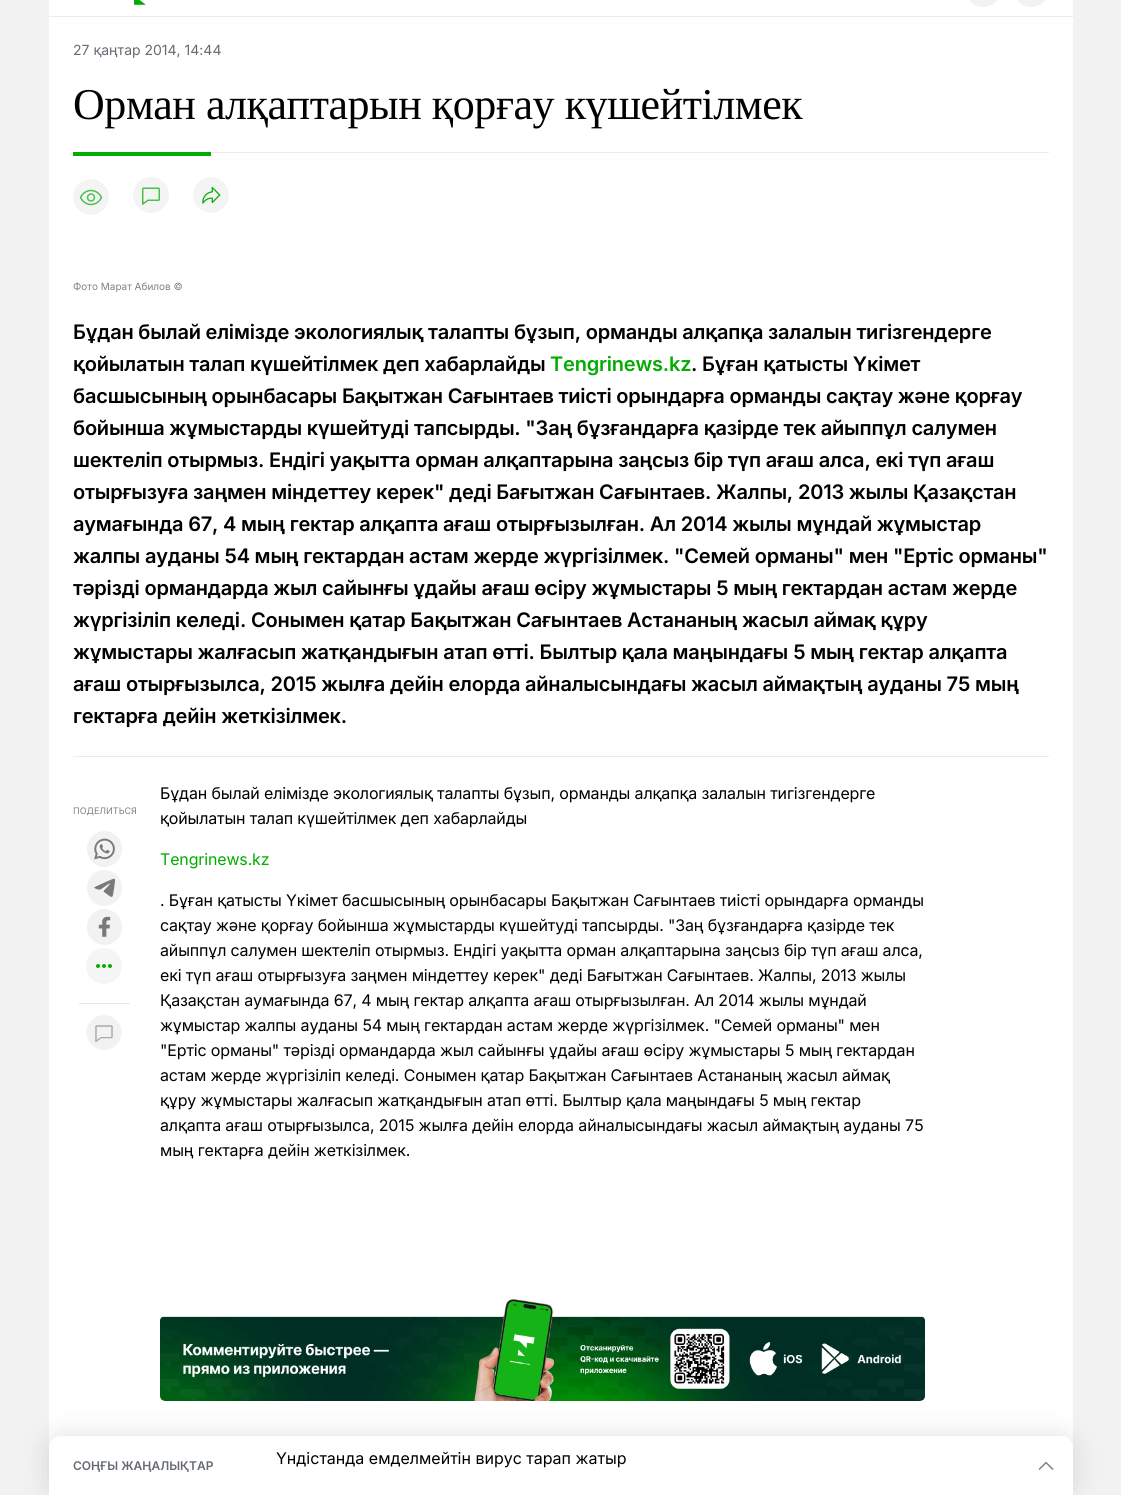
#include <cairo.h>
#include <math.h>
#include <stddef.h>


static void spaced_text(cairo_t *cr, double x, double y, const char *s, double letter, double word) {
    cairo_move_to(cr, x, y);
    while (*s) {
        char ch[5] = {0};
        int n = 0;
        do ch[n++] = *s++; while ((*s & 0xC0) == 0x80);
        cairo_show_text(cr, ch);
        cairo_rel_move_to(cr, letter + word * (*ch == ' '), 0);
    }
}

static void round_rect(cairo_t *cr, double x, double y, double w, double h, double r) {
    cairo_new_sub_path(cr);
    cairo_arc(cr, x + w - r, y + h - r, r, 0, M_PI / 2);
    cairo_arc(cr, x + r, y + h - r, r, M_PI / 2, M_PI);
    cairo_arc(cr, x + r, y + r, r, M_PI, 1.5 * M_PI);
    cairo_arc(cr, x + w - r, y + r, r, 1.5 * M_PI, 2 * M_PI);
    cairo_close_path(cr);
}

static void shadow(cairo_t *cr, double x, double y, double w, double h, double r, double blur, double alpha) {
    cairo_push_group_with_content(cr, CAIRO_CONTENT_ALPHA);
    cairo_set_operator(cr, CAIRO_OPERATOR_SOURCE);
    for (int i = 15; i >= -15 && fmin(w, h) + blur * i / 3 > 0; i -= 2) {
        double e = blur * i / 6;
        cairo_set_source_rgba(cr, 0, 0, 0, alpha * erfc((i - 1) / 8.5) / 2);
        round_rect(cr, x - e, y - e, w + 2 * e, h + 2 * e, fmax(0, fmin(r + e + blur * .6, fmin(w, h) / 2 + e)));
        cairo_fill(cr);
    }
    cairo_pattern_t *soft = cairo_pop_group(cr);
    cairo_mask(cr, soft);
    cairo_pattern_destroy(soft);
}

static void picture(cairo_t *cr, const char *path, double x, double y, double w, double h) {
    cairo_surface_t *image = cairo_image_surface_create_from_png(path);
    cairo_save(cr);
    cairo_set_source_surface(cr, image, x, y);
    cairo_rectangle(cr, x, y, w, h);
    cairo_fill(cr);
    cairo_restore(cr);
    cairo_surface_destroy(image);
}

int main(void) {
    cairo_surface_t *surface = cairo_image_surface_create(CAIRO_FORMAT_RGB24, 1121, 1495);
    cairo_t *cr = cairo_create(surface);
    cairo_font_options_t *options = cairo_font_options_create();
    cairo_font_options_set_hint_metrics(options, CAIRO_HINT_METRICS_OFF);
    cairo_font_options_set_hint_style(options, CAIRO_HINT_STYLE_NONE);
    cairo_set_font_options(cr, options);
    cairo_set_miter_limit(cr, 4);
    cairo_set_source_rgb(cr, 0.945, 0.949, 0.945);
    cairo_paint(cr);
    cairo_set_source_rgb(cr, 1, 1, 1);
    cairo_rectangle(cr, 49, 0, 1024, 16);
    cairo_fill(cr);
    cairo_set_source_rgb(cr, 0.918, 0.918, 0.925);
    cairo_rectangle(cr, 49, 16, 1024, 1);
    cairo_fill(cr);
    picture(cr, "img1.png", 134, 0, 12, 5);
    picture(cr, "img2.png", 969, 0, 28, 7);
    cairo_set_source_rgb(cr, 0.949, 0.949, 0.949);
    round_rect(cr, 1013, -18, 36, 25, 18);
    cairo_fill(cr);
    cairo_set_source_rgb(cr, 1, 1, 1);
    cairo_rectangle(cr, 49, 17, 1024, 1431);
    cairo_fill(cr);
    cairo_select_font_face(cr, "Inter", CAIRO_FONT_SLANT_NORMAL, CAIRO_FONT_WEIGHT_NORMAL);
    cairo_set_font_size(cr, 14);
    cairo_set_source_rgb(cr, 0.396, 0.42, 0.443);
    cairo_move_to(cr, 73, 55);
    cairo_show_text(cr, "27 қаңтар 2014, 14:44");
    cairo_set_source_rgb(cr, 0.918, 0.918, 0.925);
    cairo_rectangle(cr, 211, 152, 838, 1);
    cairo_fill(cr);
    cairo_select_font_face(cr, "Liberation Serif", CAIRO_FONT_SLANT_NORMAL, CAIRO_FONT_WEIGHT_NORMAL);
    cairo_set_font_size(cr, 44);
    cairo_set_source_rgb(cr, 0, 0, 0);
    spaced_text(cr, 73, 119, "Орман алқаптарын қорғау күшейтілмек", -0.45, 0);
    cairo_set_source_rgb(cr, 0.012, 0.671, 0.008);
    cairo_rectangle(cr, 73, 152, 138, 4);
    cairo_fill(cr);
    picture(cr, "img3.png", 73, 179, 36, 36);
    picture(cr, "img4.png", 133, 177, 36, 36);
    picture(cr, "img5.png", 193, 177, 36, 36);
    cairo_select_font_face(cr, "Inter", CAIRO_FONT_SLANT_NORMAL, CAIRO_FONT_WEIGHT_NORMAL);
    cairo_set_font_size(cr, 10);
    cairo_set_source_rgb(cr, 0.486, 0.498, 0.522);
    cairo_move_to(cr, 73, 290);
    cairo_show_text(cr, "Фото Марат Абилов ©");
    cairo_set_source_rgb(cr, 0.918, 0.918, 0.925);
    cairo_rectangle(cr, 73, 756, 976, 1);
    cairo_fill(cr);
    cairo_select_font_face(cr, "Inter SemiBold", CAIRO_FONT_SLANT_NORMAL, CAIRO_FONT_WEIGHT_NORMAL);
    cairo_set_font_size(cr, 20);
    cairo_set_source_rgb(cr, 0, 0, 0);
    spaced_text(cr, 73, 339, "Бұдан былай елімізде экологиялық талапты бұзып, орманды алқапқа залалын тигізгендерге", -0.2, 0);
    spaced_text(cr, 73, 371, "қойылатын талап күшейтілмек деп хабарлайды", -0.2, 0);
    cairo_set_source_rgb(cr, 0.012, 0.671, 0.008);
    spaced_text(cr, 550, 371, "Tengrinews.kz", -0.2, 0);
    cairo_set_source_rgb(cr, 0, 0, 0);
    spaced_text(cr, 691, 371, ". Бұған қатысты Үкімет", -0.2, 0);
    spaced_text(cr, 73, 403, "басшысының орынбасары Бақытжан Сағынтаев тиісті орындарға орманды сақтау және қорғау", -0.2, 0);
    spaced_text(cr, 73, 435, "бойынша жұмыстарды күшейтуді тапсырды. \"Заң бұзғандарға қазірде тек айыппұл салумен", -0.2, 0);
    spaced_text(cr, 73, 467, "шектеліп отырмыз. Ендігі уақытта орман алқаптарына заңсыз бір түп ағаш алса, екі түп ағаш", -0.2, 0);
    spaced_text(cr, 73, 499, "отырғызуға заңмен міндеттеу керек\" деді Бағытжан Сағынтаев. Жалпы, 2013 жылы Қазақстан", -0.2, 0);
    spaced_text(cr, 73, 531, "аумағында 67, 4 мың гектар алқапта ағаш отырғызылған. Ал 2014 жылы мұндай жұмыстар", -0.2, 0);
    spaced_text(cr, 73, 563, "жалпы ауданы 54 мың гектардан астам жерде жүргізілмек. \"Семей орманы\" мен \"Ертіс орманы\"", -0.2, 0);
    spaced_text(cr, 73, 595, "тәрізді ормандарда жыл сайынғы ұдайы ағаш өсіру жұмыстары 5 мың гектардан астам жерде", -0.2, 0);
    spaced_text(cr, 73, 627, "жүргізіліп келеді. Сонымен қатар Бақытжан Сағынтаев Астананың жасыл аймақ құру", -0.2, 0);
    spaced_text(cr, 73, 659, "жұмыстары жалғасып жатқандығын атап өтті. Былтыр қала маңындағы 5 мың гектар алқапта", -0.2, 0);
    spaced_text(cr, 73, 691, "ағаш отырғызылса, 2015 жылға дейін елорда айналысындағы жасыл аймақтың ауданы 75 мың", -0.2, 0);
    spaced_text(cr, 73, 723, "гектарға дейін жеткізілмек.", -0.2, 0);
    cairo_select_font_face(cr, "Inter", CAIRO_FONT_SLANT_NORMAL, CAIRO_FONT_WEIGHT_NORMAL);
    cairo_set_font_size(cr, 9);
    cairo_set_source_rgb(cr, 0.486, 0.498, 0.522);
    cairo_move_to(cr, 73, 814);
    cairo_show_text(cr, "ПОДЕЛИТЬСЯ");
    picture(cr, "img6.png", 87, 831, 35, 36);
    picture(cr, "img7.png", 87, 870, 35, 36);
    picture(cr, "img8.png", 87, 909, 35, 36);
    cairo_set_source_rgb(cr, 0.957, 0.961, 0.961);
    cairo_arc(cr, 104, 966, 18, 0, 2 * M_PI);
    cairo_fill(cr);
    cairo_set_source_rgb(cr, 0.012, 0.671, 0.008);
    cairo_arc(cr, 98, 966, 2, 0, 2 * M_PI);
    cairo_fill(cr);
    cairo_arc(cr, 104, 966, 2, 0, 2 * M_PI);
    cairo_fill(cr);
    cairo_arc(cr, 110, 966, 2, 0, 2 * M_PI);
    cairo_fill(cr);
    cairo_set_source_rgb(cr, 0.906, 0.906, 0.906);
    cairo_rectangle(cr, 79, 1003, 51, 1);
    cairo_fill(cr);
    picture(cr, "img9.png", 86, 1015, 36, 35);
    cairo_set_font_size(cr, 16);
    cairo_set_source_rgb(cr, 0, 0, 0);
    spaced_text(cr, 160, 799, "Бұдан былай елімізде экологиялық талапты бұзып, орманды алқапқа залалын тигізгендерге", -0.15, 0);
    spaced_text(cr, 160, 824, "қойылатын талап күшейтілмек деп хабарлайды", -0.15, 0);
    cairo_set_source_rgb(cr, 0.012, 0.671, 0.008);
    spaced_text(cr, 160, 865, "Tengrinews.kz", -0.15, 0);
    cairo_set_source_rgb(cr, 0, 0, 0);
    spaced_text(cr, 160, 906, ". Бұған қатысты Үкімет басшысының орынбасары Бақытжан Сағынтаев тиісті орындарға орманды", -0.15, 0);
    spaced_text(cr, 160, 931, "сақтау және қорғау бойынша жұмыстарды күшейтуді тапсырды. \"Заң бұзғандарға қазірде тек", -0.15, 0);
    spaced_text(cr, 160, 956, "айыппұл салумен шектеліп отырмыз. Ендігі уақытта орман алқаптарына заңсыз бір түп ағаш алса,", -0.15, 0);
    spaced_text(cr, 160, 981, "екі түп ағаш отырғызуға заңмен міндеттеу керек\" деді Бағытжан Сағынтаев. Жалпы, 2013 жылы", -0.15, 0);
    spaced_text(cr, 160, 1006, "Қазақстан аумағында 67, 4 мың гектар алқапта ағаш отырғызылған. Ал 2014 жылы мұндай", -0.15, 0);
    spaced_text(cr, 160, 1031, "жұмыстар жалпы ауданы 54 мың гектардан астам жерде жүргізілмек. \"Семей орманы\" мен", -0.15, 0);
    spaced_text(cr, 160, 1056, "\"Ертіс орманы\" тәрізді ормандарда жыл сайынғы ұдайы ағаш өсіру жұмыстары 5 мың гектардан", -0.15, 0);
    spaced_text(cr, 160, 1081, "астам жерде жүргізіліп келеді. Сонымен қатар Бақытжан Сағынтаев Астананың жасыл аймақ", -0.15, 0);
    spaced_text(cr, 160, 1106, "құру жұмыстары жалғасып жатқандығын атап өтті. Былтыр қала маңындағы 5 мың гектар", -0.15, 0);
    spaced_text(cr, 160, 1131, "алқапта ағаш отырғызылса, 2015 жылға дейін елорда айналысындағы жасыл аймақтың ауданы 75", -0.15, 0);
    spaced_text(cr, 160, 1156, "мың гектарға дейін жеткізілмек.", -0.15, 0);
    picture(cr, "img10.png", 160, 1299, 765, 102);
    cairo_set_source_rgb(cr, 0, 0, 0);
    shadow(cr, 49, 1436, 1024, 59, 12, 15, 0.12);
    cairo_set_source_rgb(cr, 1, 1, 1);
    cairo_new_path(cr);
    cairo_move_to(cr, 61, 1436);
    cairo_line_to(cr, 1061, 1436);
    cairo_curve_to(cr, 1067.5, 1436, 1073, 1441.5, 1073, 1448);
    cairo_line_to(cr, 1073, 1495);
    cairo_line_to(cr, 49, 1495);
    cairo_line_to(cr, 49, 1448);
    cairo_curve_to(cr, 49, 1441.5, 54.5, 1436, 61, 1436);
    cairo_close_path(cr);
    cairo_fill(cr);
    cairo_select_font_face(cr, "Inter SemiBold", CAIRO_FONT_SLANT_NORMAL, CAIRO_FONT_WEIGHT_NORMAL);
    cairo_set_font_size(cr, 12);
    cairo_set_source_rgb(cr, 0.396, 0.42, 0.443);
    cairo_move_to(cr, 73, 1470);
    cairo_show_text(cr, "СОҢҒЫ ЖАҢАЛЫҚТАР");
    picture(cr, "img11.png", 1038, 1462, 16, 8);
    cairo_select_font_face(cr, "Inter", CAIRO_FONT_SLANT_NORMAL, CAIRO_FONT_WEIGHT_NORMAL);
    cairo_set_font_size(cr, 16);
    cairo_set_source_rgb(cr, 0, 0, 0);
    cairo_move_to(cr, 276, 1464);
    cairo_show_text(cr, "Үндістанда емделмейтін вирус тарап жатыр");
    cairo_surface_write_to_png(surface, "page.png");
    cairo_font_options_destroy(options);
    cairo_destroy(cr);
    cairo_surface_destroy(surface);
    return 0;
}
